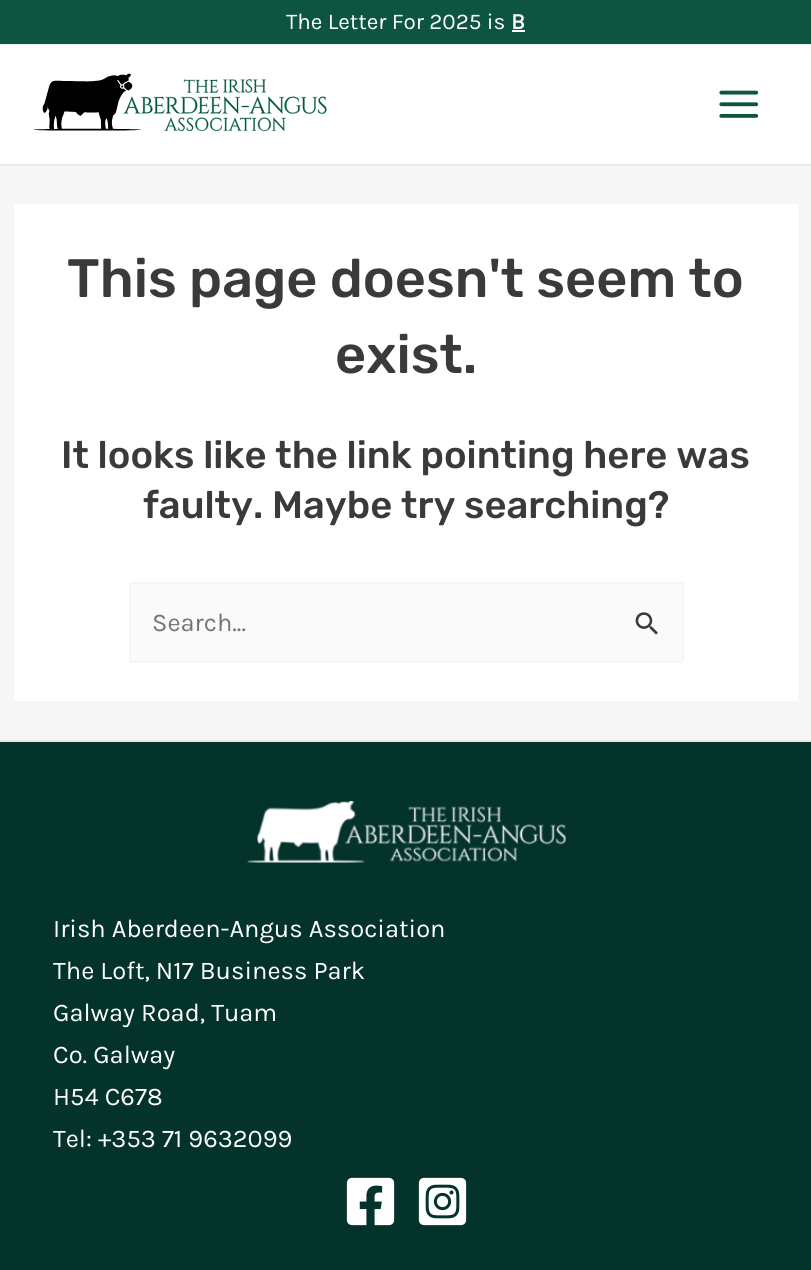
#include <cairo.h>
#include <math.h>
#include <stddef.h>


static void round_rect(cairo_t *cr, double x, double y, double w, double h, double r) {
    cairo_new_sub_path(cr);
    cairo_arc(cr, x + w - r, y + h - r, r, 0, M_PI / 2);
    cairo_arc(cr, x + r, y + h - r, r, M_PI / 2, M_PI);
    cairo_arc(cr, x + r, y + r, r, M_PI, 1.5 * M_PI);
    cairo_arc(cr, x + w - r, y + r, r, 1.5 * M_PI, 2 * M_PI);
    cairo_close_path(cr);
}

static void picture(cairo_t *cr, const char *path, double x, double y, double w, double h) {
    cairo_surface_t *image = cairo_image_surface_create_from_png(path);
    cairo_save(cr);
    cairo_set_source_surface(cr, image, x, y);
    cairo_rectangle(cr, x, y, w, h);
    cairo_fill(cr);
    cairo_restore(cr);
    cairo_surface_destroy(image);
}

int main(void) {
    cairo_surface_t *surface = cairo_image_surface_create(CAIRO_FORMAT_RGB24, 811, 1270);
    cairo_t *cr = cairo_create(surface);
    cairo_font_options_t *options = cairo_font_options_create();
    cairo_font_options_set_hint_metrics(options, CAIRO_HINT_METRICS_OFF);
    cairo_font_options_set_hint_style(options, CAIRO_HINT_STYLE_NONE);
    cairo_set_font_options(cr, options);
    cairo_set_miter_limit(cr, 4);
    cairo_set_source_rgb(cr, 0.961, 0.961, 0.961);
    cairo_paint(cr);
    cairo_set_source_rgb(cr, 0.051, 0.333, 0.251);
    cairo_rectangle(cr, 0, 0, 811, 44);
    cairo_fill(cr);
    cairo_set_source_rgb(cr, 0.918, 0.918, 0.918);
    cairo_rectangle(cr, 0, 44, 811, 1);
    cairo_fill(cr);
    cairo_select_font_face(cr, "Karla", CAIRO_FONT_SLANT_NORMAL, CAIRO_FONT_WEIGHT_NORMAL);
    cairo_set_font_size(cr, 22.5);
    cairo_set_source_rgb(cr, 1, 1, 1);
    cairo_move_to(cr, 286, 29);
    cairo_show_text(cr, "The Letter For 2025 is");
    cairo_select_font_face(cr, "Karla", CAIRO_FONT_SLANT_NORMAL, CAIRO_FONT_WEIGHT_BOLD);
    cairo_move_to(cr, 511, 29);
    cairo_show_text(cr, "B");
    cairo_rectangle(cr, 512, 30, 13, 2);
    cairo_fill(cr);
    cairo_rectangle(cr, 0, 45, 811, 119);
    cairo_fill(cr);
    cairo_set_source_rgb(cr, 0.918, 0.918, 0.918);
    cairo_rectangle(cr, 0, 164, 811, 2);
    cairo_fill(cr);
    picture(cr, "img1.png", 33, 73, 294, 59);
    picture(cr, "img2.png", 719, 90, 40, 28);
    cairo_set_source_rgb(cr, 1, 1, 1);
    cairo_rectangle(cr, 14, 204, 784, 497);
    cairo_fill(cr);
    cairo_select_font_face(cr, "Rubik Light", CAIRO_FONT_SLANT_NORMAL, CAIRO_FONT_WEIGHT_NORMAL);
    cairo_set_font_size(cr, 54);
    cairo_set_source_rgb(cr, 0.227, 0.227, 0.227);
    cairo_move_to(cr, 67, 297);
    cairo_show_text(cr, "This page doesn't seem to");
    cairo_move_to(cr, 335, 373);
    cairo_show_text(cr, "exist.");
    cairo_set_font_size(cr, 38.25);
    cairo_move_to(cr, 61, 468);
    cairo_show_text(cr, "It looks like the link pointing here was");
    cairo_move_to(cr, 143, 518);
    cairo_show_text(cr, "faulty. Maybe try searching?");
    cairo_set_source_rgb(cr, 0.98, 0.98, 0.98);
    round_rect(cr, 130, 583, 553, 79, 2);
    cairo_fill_preserve(cr);
    cairo_set_source_rgb(cr, 0.949, 0.961, 0.969);
    cairo_stroke(cr);
    cairo_select_font_face(cr, "Karla", CAIRO_FONT_SLANT_NORMAL, CAIRO_FONT_WEIGHT_NORMAL);
    cairo_set_font_size(cr, 25.5);
    cairo_set_source_rgb(cr, 0.459, 0.459, 0.459);
    cairo_move_to(cr, 152, 631);
    cairo_show_text(cr, "Search...");
    picture(cr, "img3.png", 635, 612, 23, 23);
    cairo_set_source_rgb(cr, 0.012, 0.2, 0.165);
    cairo_rectangle(cr, 0, 742, 811, 528);
    cairo_fill(cr);
    cairo_set_source_rgb(cr, 0.902, 0.902, 0.902);
    cairo_rectangle(cr, 0, 740, 811, 2);
    cairo_fill(cr);
    picture(cr, "img4.png", 247, 801, 319, 62);
    cairo_set_source_rgb(cr, 1, 1, 1);
    cairo_move_to(cr, 53, 937);
    cairo_show_text(cr, "Irish Aberdeen-Angus Association");
    cairo_move_to(cr, 53, 979);
    cairo_show_text(cr, "The Loft, N17 Business Park");
    cairo_move_to(cr, 53, 1021);
    cairo_show_text(cr, "Galway Road, Tuam");
    cairo_move_to(cr, 53, 1063);
    cairo_show_text(cr, "Co. Galway");
    cairo_move_to(cr, 53, 1105);
    cairo_show_text(cr, "H54 C678");
    cairo_move_to(cr, 53, 1147);
    cairo_show_text(cr, "Tel: +353 71 9632099");
    picture(cr, "img5.png", 346, 1177, 49, 49);
    picture(cr, "img6.png", 418, 1177, 49, 49);
    cairo_surface_write_to_png(surface, "page.png");
    cairo_font_options_destroy(options);
    cairo_destroy(cr);
    cairo_surface_destroy(surface);
    return 0;
}
